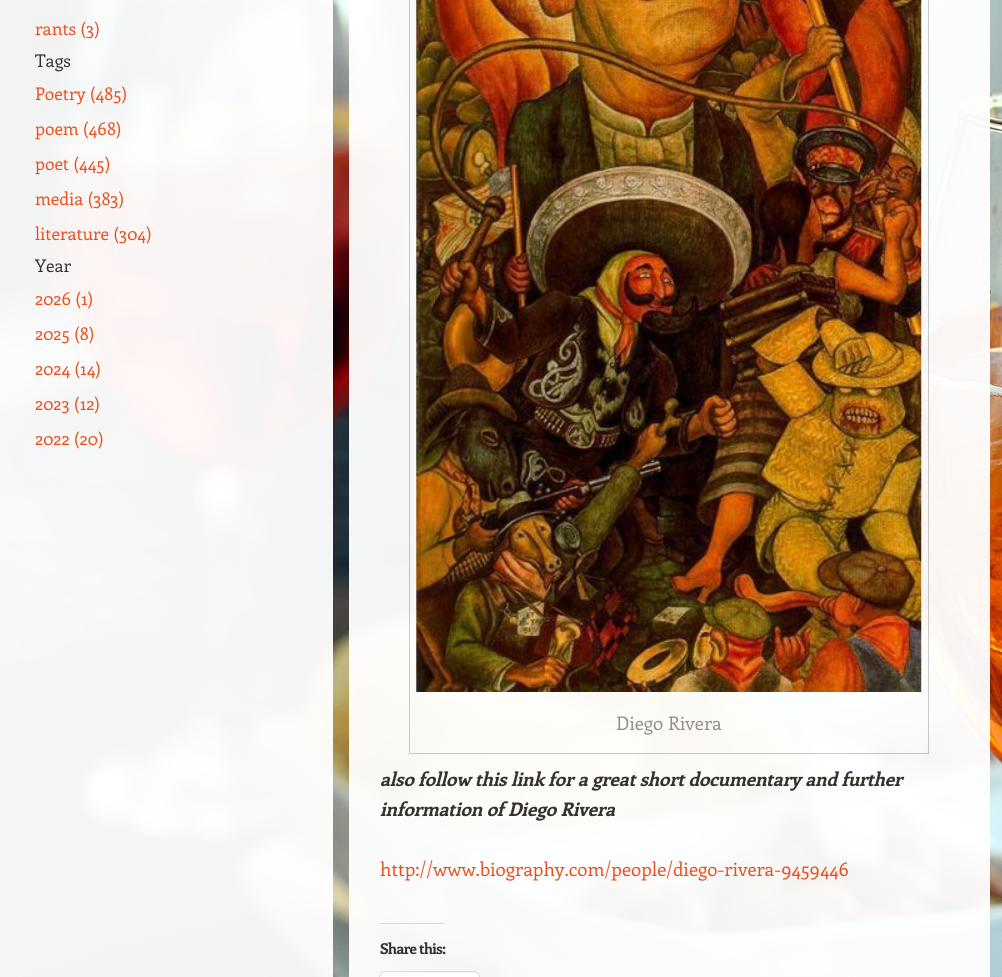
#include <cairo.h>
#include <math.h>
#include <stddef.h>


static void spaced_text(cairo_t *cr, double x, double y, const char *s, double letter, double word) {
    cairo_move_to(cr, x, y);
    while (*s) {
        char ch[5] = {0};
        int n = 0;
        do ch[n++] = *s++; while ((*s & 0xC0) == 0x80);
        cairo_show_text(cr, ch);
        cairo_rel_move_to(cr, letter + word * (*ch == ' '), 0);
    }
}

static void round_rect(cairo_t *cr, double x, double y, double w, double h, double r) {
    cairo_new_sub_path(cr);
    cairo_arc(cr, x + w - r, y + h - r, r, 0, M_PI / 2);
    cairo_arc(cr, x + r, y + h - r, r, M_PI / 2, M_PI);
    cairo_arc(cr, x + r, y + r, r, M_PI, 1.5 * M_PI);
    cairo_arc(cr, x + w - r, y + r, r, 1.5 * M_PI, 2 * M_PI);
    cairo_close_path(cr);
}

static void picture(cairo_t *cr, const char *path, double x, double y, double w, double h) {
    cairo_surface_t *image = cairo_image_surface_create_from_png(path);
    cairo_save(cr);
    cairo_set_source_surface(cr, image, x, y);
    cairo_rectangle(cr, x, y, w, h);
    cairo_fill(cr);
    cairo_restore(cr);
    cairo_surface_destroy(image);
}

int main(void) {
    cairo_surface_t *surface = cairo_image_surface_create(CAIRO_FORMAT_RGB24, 1002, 977);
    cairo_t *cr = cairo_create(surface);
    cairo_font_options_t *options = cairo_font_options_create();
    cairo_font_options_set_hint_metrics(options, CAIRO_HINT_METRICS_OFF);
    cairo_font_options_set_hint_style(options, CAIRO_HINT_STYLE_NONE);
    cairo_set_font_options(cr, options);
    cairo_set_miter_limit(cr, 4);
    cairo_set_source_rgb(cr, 1, 1, 1);
    cairo_paint(cr);
    picture(cr, "img1.png", 0, 0, 1002, 977);
    cairo_set_source_rgba(cr, 1, 1, 1, 0.95);
    cairo_rectangle(cr, 0, 0, 333, 977);
    cairo_fill(cr);
    cairo_select_font_face(cr, "Enriqueta", CAIRO_FONT_SLANT_NORMAL, CAIRO_FONT_WEIGHT_NORMAL);
    cairo_set_font_size(cr, 17.5);
    cairo_set_source_rgb(cr, 0.914, 0.31, 0.114);
    cairo_move_to(cr, 35, 35);
    cairo_show_text(cr, "rants (3)");
    cairo_set_source_rgb(cr, 0.212, 0.192, 0.176);
    cairo_move_to(cr, 35, 67);
    cairo_show_text(cr, "Tags");
    cairo_set_source_rgb(cr, 0.914, 0.31, 0.114);
    cairo_move_to(cr, 35, 100);
    cairo_show_text(cr, "Poetry (485)");
    cairo_move_to(cr, 35, 135);
    cairo_show_text(cr, "poem (468)");
    cairo_move_to(cr, 35, 170);
    cairo_show_text(cr, "poet (445)");
    cairo_move_to(cr, 35, 205);
    cairo_show_text(cr, "media (383)");
    cairo_move_to(cr, 35, 240);
    cairo_show_text(cr, "literature (304)");
    cairo_set_source_rgb(cr, 0.212, 0.192, 0.176);
    cairo_move_to(cr, 35, 272);
    cairo_show_text(cr, "Year");
    cairo_set_source_rgb(cr, 0.914, 0.31, 0.114);
    cairo_move_to(cr, 35, 305);
    cairo_show_text(cr, "2026 (1)");
    cairo_move_to(cr, 35, 340);
    cairo_show_text(cr, "2025 (8)");
    cairo_move_to(cr, 35, 375);
    cairo_show_text(cr, "2024 (14)");
    cairo_move_to(cr, 35, 410);
    cairo_show_text(cr, "2023 (12)");
    cairo_move_to(cr, 35, 445);
    cairo_show_text(cr, "2022 (20)");
    cairo_set_source_rgba(cr, 1, 1, 1, 0.95);
    cairo_rectangle(cr, 349, 0, 641, 977);
    cairo_fill(cr);
    cairo_rectangle(cr, 409.5, -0.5, 519, 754);
    cairo_set_source_rgba(cr, 0, 0, 0, 0.2);
    cairo_set_line_width(cr, 1);
    cairo_stroke(cr);
    picture(cr, "img2.png", 416, 0, 506, 692);
    cairo_set_font_size(cr, 18.75);
    cairo_set_source_rgb(cr, 0.569, 0.557, 0.549);
    cairo_move_to(cr, 616, 730);
    cairo_show_text(cr, "Diego Rivera");
    cairo_select_font_face(cr, "Enriqueta", CAIRO_FONT_SLANT_ITALIC, CAIRO_FONT_WEIGHT_BOLD);
    cairo_set_source_rgb(cr, 0.212, 0.192, 0.176);
    cairo_move_to(cr, 380, 786);
    cairo_show_text(cr, "also follow this link for a great short documentary and further");
    cairo_move_to(cr, 380, 816);
    cairo_show_text(cr, "information of Diego Rivera");
    cairo_select_font_face(cr, "Enriqueta", CAIRO_FONT_SLANT_NORMAL, CAIRO_FONT_WEIGHT_NORMAL);
    cairo_set_source_rgb(cr, 0.914, 0.31, 0.114);
    cairo_move_to(cr, 380, 876);
    cairo_show_text(cr, "http://www.biography.com/people/diego-rivera-9459446");
    cairo_set_source_rgb(cr, 0.863, 0.863, 0.871);
    cairo_rectangle(cr, 380, 923, 65, 1);
    cairo_fill(cr);
    cairo_select_font_face(cr, "Enriqueta", CAIRO_FONT_SLANT_NORMAL, CAIRO_FONT_WEIGHT_BOLD);
    cairo_set_font_size(cr, 15);
    cairo_set_source_rgb(cr, 0.212, 0.192, 0.176);
    spaced_text(cr, 380, 954, "Share this:", -0.6, 0);
    round_rect(cr, 379.5, 971.5, 100, 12, 5.5);
    cairo_set_source_rgba(cr, 0, 0, 0, 0.12);
    cairo_stroke(cr);
    cairo_set_source_rgb(cr, 1, 1, 1);
    round_rect(cr, 380, 973, 99, 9, 5);
    cairo_fill(cr);
    cairo_surface_write_to_png(surface, "page.png");
    cairo_font_options_destroy(options);
    cairo_destroy(cr);
    cairo_surface_destroy(surface);
    return 0;
}
